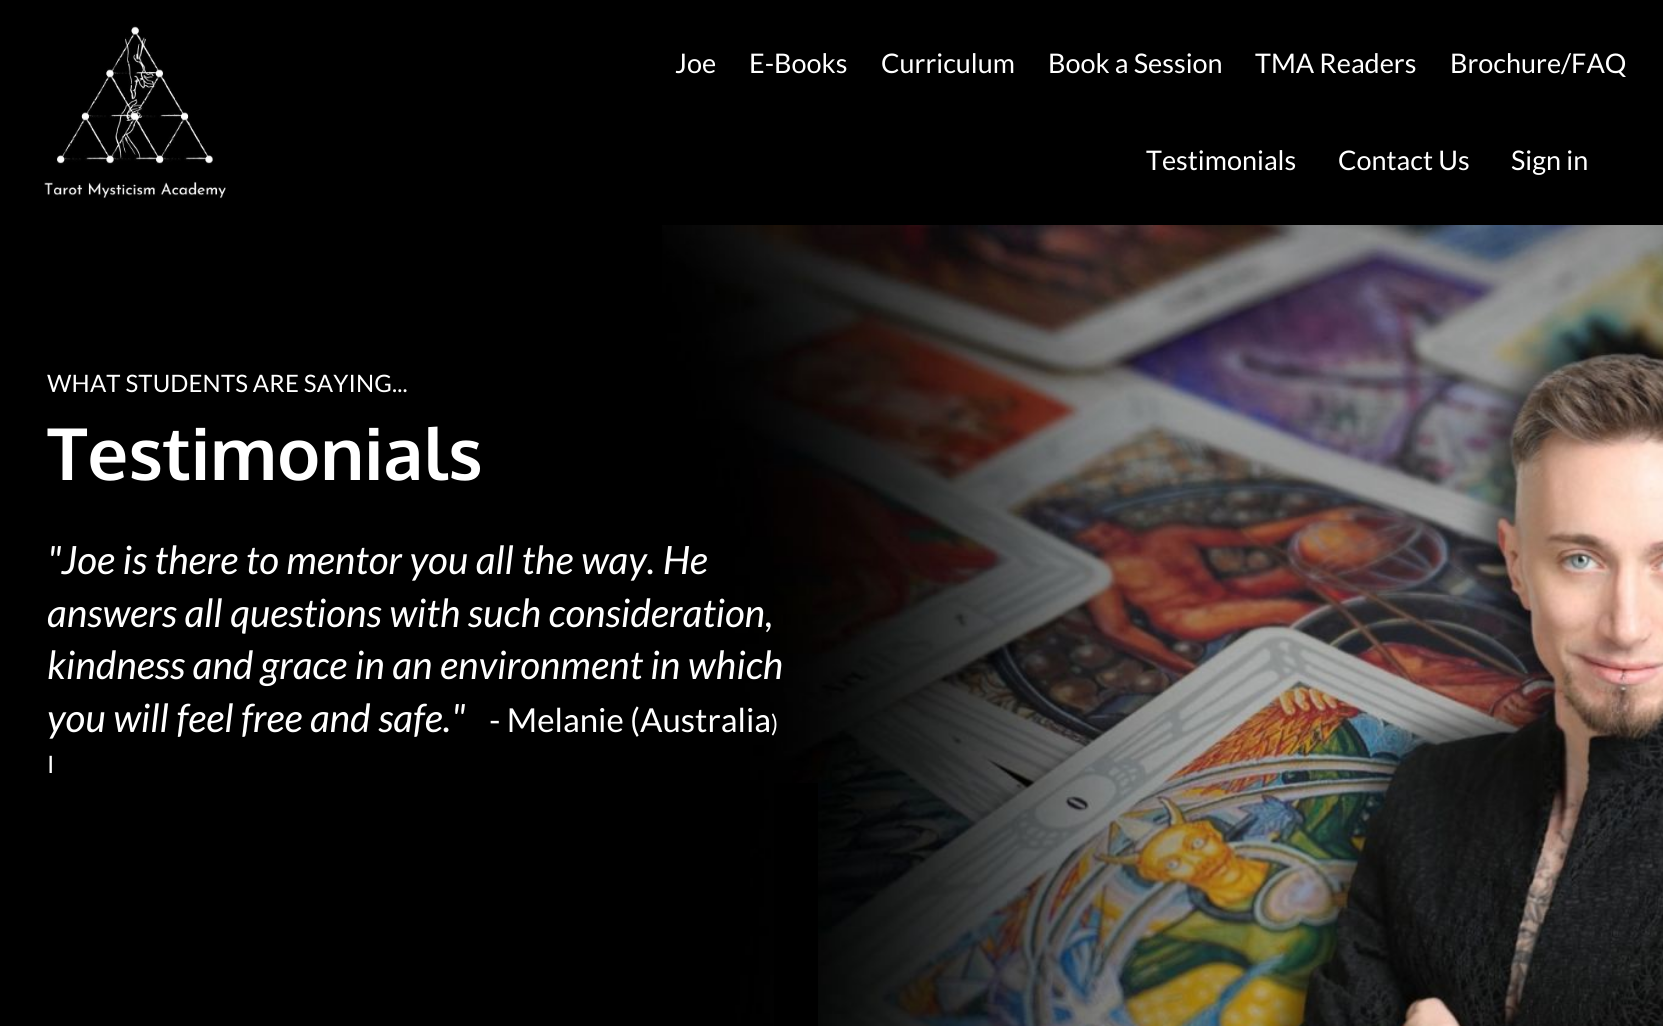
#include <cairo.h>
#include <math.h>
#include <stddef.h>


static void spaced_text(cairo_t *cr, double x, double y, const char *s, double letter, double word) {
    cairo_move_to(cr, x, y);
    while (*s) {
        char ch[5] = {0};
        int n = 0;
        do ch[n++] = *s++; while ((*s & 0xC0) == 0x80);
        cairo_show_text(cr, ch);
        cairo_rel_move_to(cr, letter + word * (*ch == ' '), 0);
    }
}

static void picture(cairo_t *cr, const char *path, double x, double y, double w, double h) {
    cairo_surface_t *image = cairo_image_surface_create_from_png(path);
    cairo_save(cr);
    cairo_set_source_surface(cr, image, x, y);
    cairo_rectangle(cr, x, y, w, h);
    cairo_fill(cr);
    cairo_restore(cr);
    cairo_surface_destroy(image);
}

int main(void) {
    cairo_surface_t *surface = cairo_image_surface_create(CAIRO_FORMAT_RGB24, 1663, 1026);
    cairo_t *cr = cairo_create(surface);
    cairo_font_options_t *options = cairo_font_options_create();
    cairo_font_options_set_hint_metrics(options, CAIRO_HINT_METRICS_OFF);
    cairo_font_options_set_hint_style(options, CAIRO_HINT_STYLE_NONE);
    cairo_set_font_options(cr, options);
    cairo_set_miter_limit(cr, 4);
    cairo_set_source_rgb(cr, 0, 0, 0);
    cairo_paint(cr);
    picture(cr, "img1.png", 44, 25, 182, 174);
    cairo_select_font_face(cr, "Lato", CAIRO_FONT_SLANT_NORMAL, CAIRO_FONT_WEIGHT_NORMAL);
    cairo_set_font_size(cr, 27);
    cairo_set_source_rgb(cr, 1, 1, 1);
    cairo_move_to(cr, 675, 73);
    cairo_show_text(cr, "Joe");
    cairo_move_to(cr, 749, 73);
    cairo_show_text(cr, "E-Books");
    cairo_move_to(cr, 881, 73);
    cairo_show_text(cr, "Curriculum");
    cairo_move_to(cr, 1048, 73);
    cairo_show_text(cr, "Book a Session");
    cairo_move_to(cr, 1255, 73);
    cairo_show_text(cr, "TMA Readers");
    cairo_move_to(cr, 1450, 73);
    cairo_show_text(cr, "Brochure/FAQ");
    cairo_move_to(cr, 1146, 170);
    cairo_show_text(cr, "Testimonials");
    cairo_move_to(cr, 1338, 170);
    cairo_show_text(cr, "Contact Us");
    cairo_move_to(cr, 1511, 170);
    cairo_show_text(cr, "Sign in");
    picture(cr, "img2.png", 662, 225, 1001, 801);
    cairo_set_font_size(cr, 24);
    spaced_text(cr, 47, 392, "WHAT STUDENTS ARE SAYING...", 0.15, 0);
    cairo_select_font_face(cr, "Oxygen", CAIRO_FONT_SLANT_NORMAL, CAIRO_FONT_WEIGHT_BOLD);
    cairo_set_font_size(cr, 72);
    cairo_move_to(cr, 47, 480);
    cairo_show_text(cr, "Testimonials");
    cairo_select_font_face(cr, "Lato", CAIRO_FONT_SLANT_ITALIC, CAIRO_FONT_WEIGHT_NORMAL);
    cairo_set_font_size(cr, 39);
    cairo_move_to(cr, 47, 574);
    cairo_show_text(cr, "\"Joe is there to mentor you all the way. He");
    cairo_move_to(cr, 47, 627);
    cairo_show_text(cr, "answers all questions with such consideration,");
    cairo_move_to(cr, 47, 679);
    cairo_show_text(cr, "kindness and grace in an environment in which");
    cairo_move_to(cr, 47, 732);
    cairo_show_text(cr, "you will feel free and safe.\"");
    cairo_select_font_face(cr, "Lato", CAIRO_FONT_SLANT_NORMAL, CAIRO_FONT_WEIGHT_NORMAL);
    cairo_set_font_size(cr, 33);
    cairo_move_to(cr, 489, 732);
    cairo_show_text(cr, "- Melanie (Australia");
    cairo_set_font_size(cr, 24);
    spaced_text(cr, 771, 732, ")", 0.15, 0);
    spaced_text(cr, 47, 773, "I", 0.15, 0);
    cairo_set_source_rgb(cr, 0, 0, 0);
    cairo_rectangle(cr, 774, 783, 44, 243);
    cairo_fill(cr);
    cairo_surface_write_to_png(surface, "page.png");
    cairo_font_options_destroy(options);
    cairo_destroy(cr);
    cairo_surface_destroy(surface);
    return 0;
}
